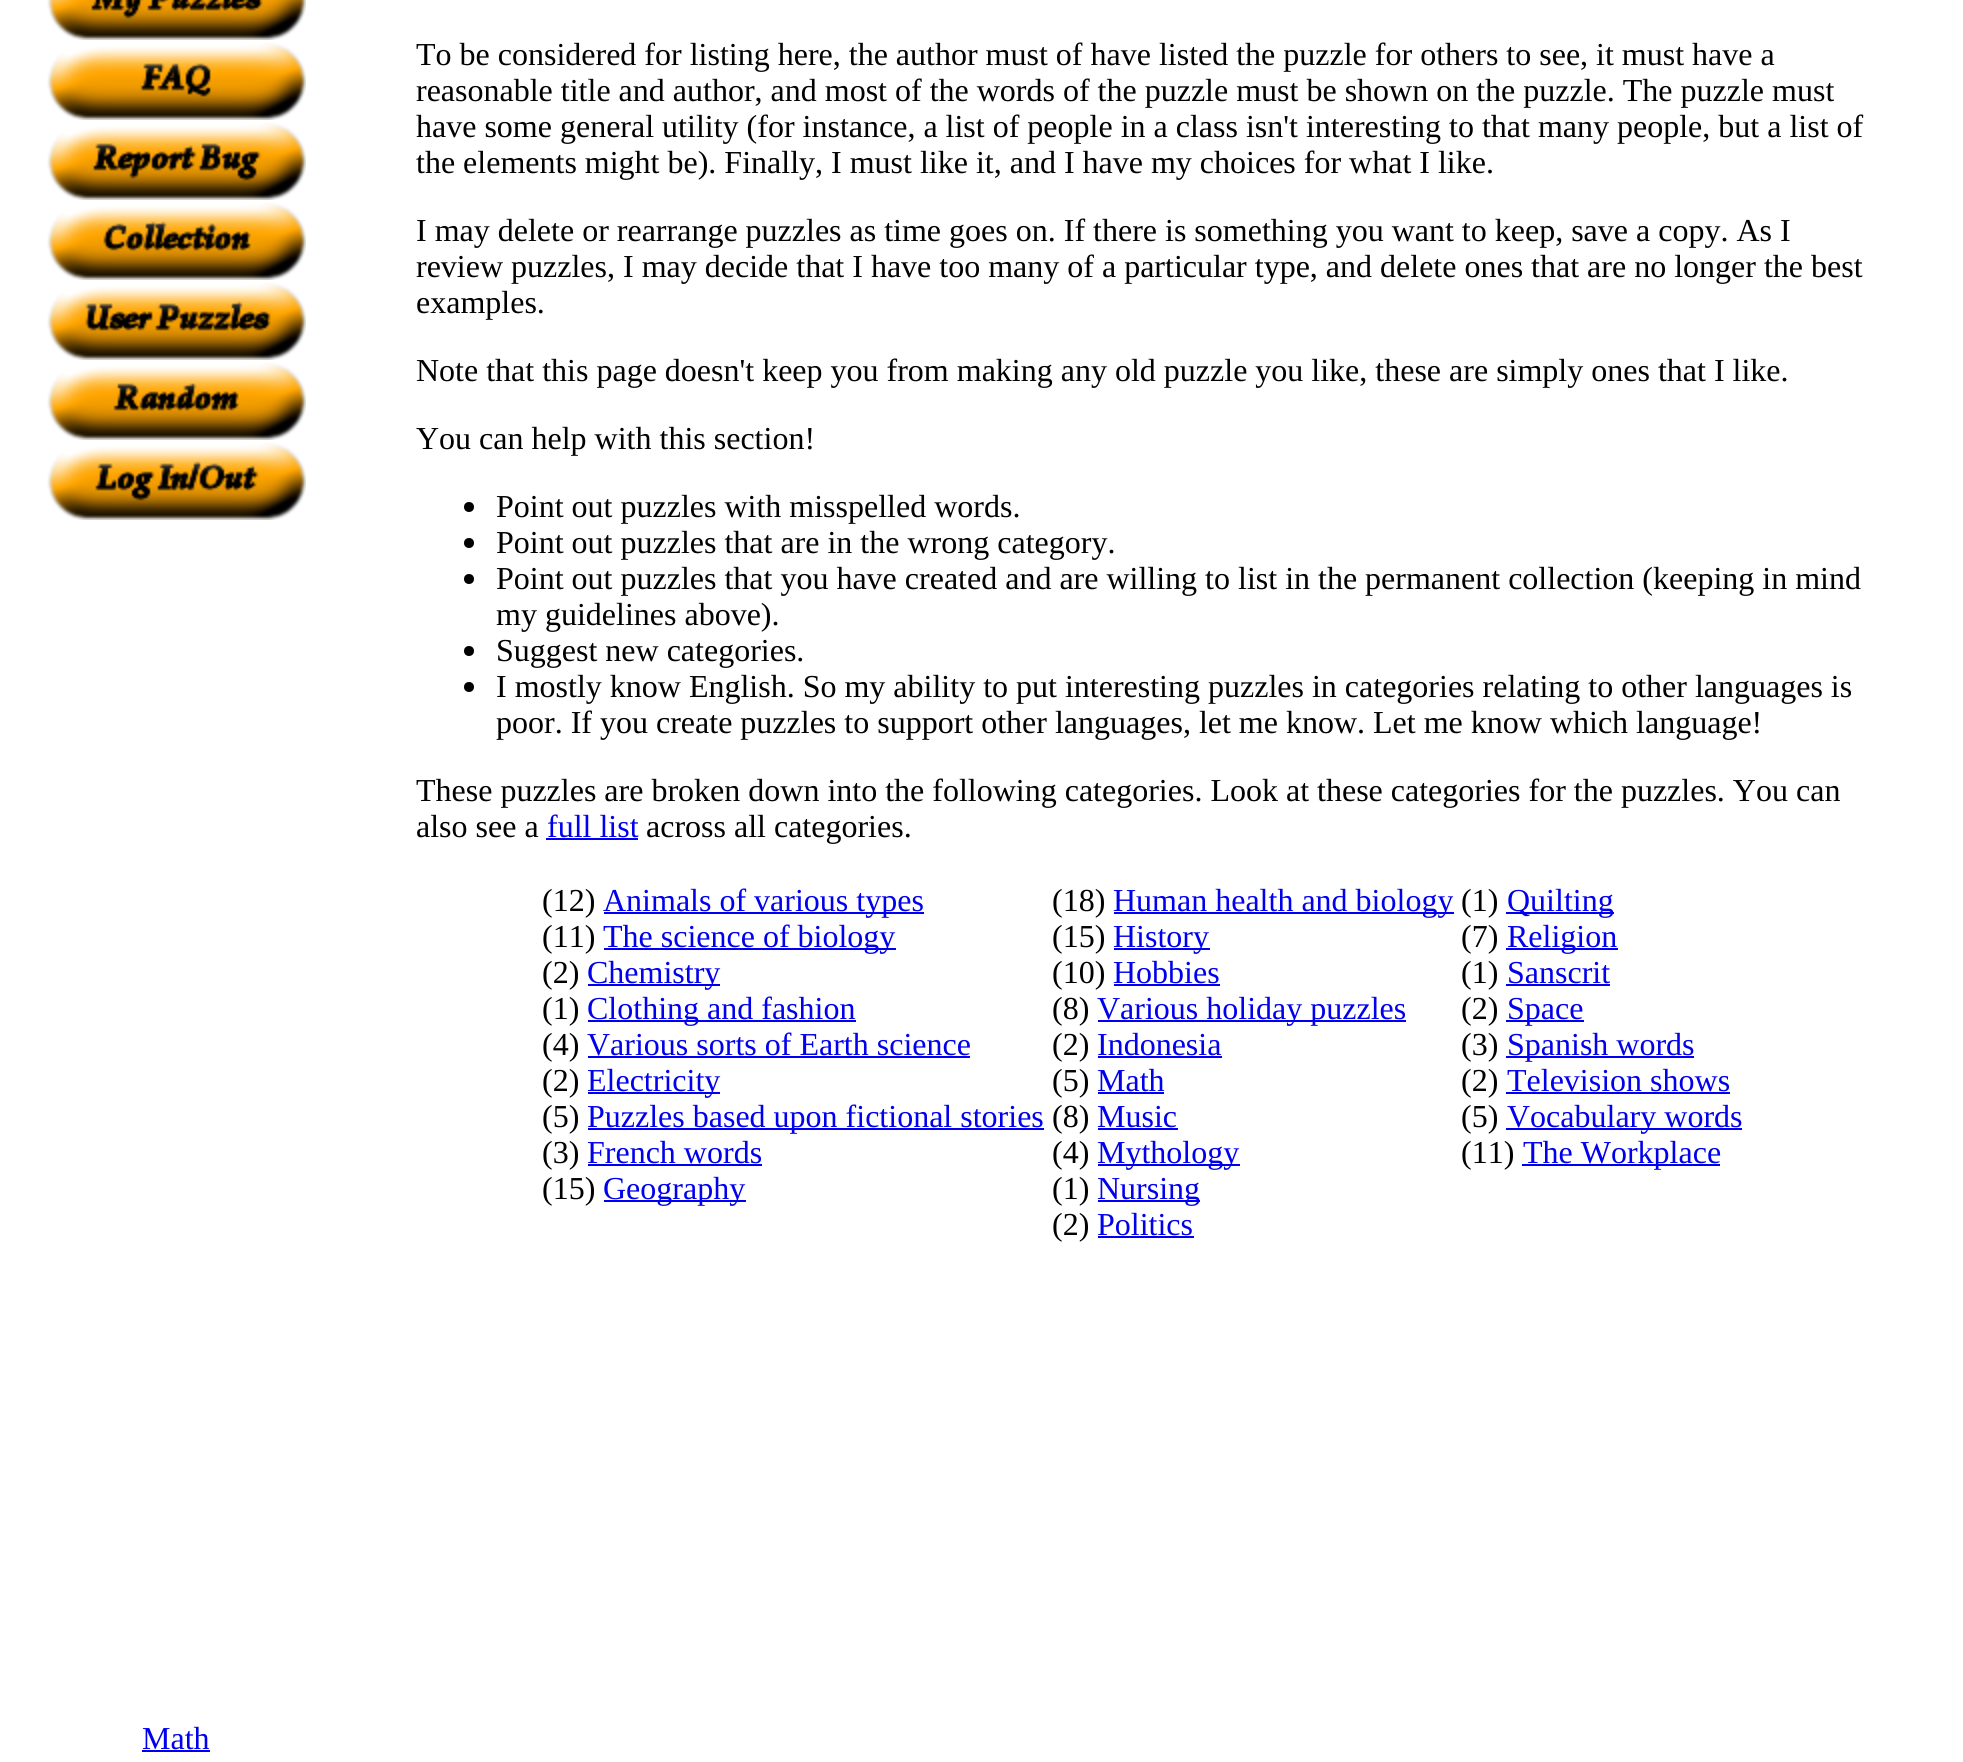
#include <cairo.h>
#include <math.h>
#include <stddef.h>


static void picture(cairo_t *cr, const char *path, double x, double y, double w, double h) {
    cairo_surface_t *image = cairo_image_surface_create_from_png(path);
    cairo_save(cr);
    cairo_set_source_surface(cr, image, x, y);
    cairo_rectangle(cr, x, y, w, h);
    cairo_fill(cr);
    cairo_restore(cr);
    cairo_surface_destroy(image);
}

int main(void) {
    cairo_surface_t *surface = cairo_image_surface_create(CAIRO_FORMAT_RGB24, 1963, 1762);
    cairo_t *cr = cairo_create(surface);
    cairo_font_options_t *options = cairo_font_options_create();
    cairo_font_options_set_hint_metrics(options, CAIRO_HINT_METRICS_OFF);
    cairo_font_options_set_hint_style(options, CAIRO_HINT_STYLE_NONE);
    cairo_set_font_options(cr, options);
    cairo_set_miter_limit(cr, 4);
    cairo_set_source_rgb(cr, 1, 1, 1);
    cairo_paint(cr);
    cairo_select_font_face(cr, "Liberation Serif", CAIRO_FONT_SLANT_NORMAL, CAIRO_FONT_WEIGHT_NORMAL);
    cairo_set_font_size(cr, 32);
    cairo_set_source_rgb(cr, 0, 0, 0);
    cairo_move_to(cr, 416, 65);
    cairo_show_text(cr, "To be considered for listing here, the author must of have listed the puzzle for others to see, it must have a");
    cairo_move_to(cr, 416, 101);
    cairo_show_text(cr, "reasonable title and author, and most of the words of the puzzle must be shown on the puzzle. The puzzle must");
    cairo_move_to(cr, 416, 137);
    cairo_show_text(cr, "have some general utility (for instance, a list of people in a class isn't interesting to that many people, but a list of");
    cairo_move_to(cr, 416, 173);
    cairo_show_text(cr, "the elements might be). Finally, I must like it, and I have my choices for what I like.");
    cairo_move_to(cr, 416, 241);
    cairo_show_text(cr, "I may delete or rearrange puzzles as time goes on. If there is something you want to keep, save a copy. As I");
    cairo_move_to(cr, 416, 277);
    cairo_show_text(cr, "review puzzles, I may decide that I have too many of a particular type, and delete ones that are no longer the best");
    cairo_move_to(cr, 416, 313);
    cairo_show_text(cr, "examples.");
    cairo_move_to(cr, 416, 381);
    cairo_show_text(cr, "Note that this page doesn't keep you from making any old puzzle you like, these are simply ones that I like.");
    cairo_move_to(cr, 416, 449);
    cairo_show_text(cr, "You can help with this section!");
    cairo_new_path(cr);
    cairo_arc(cr, 469, 507, 5, 0, 2 * M_PI);
    cairo_fill(cr);
    cairo_move_to(cr, 496, 517);
    cairo_show_text(cr, "Point out puzzles with misspelled words.");
    cairo_new_path(cr);
    cairo_arc(cr, 469, 543, 5, 0, 2 * M_PI);
    cairo_fill(cr);
    cairo_move_to(cr, 496, 553);
    cairo_show_text(cr, "Point out puzzles that are in the wrong category.");
    cairo_new_path(cr);
    cairo_arc(cr, 469, 579, 5, 0, 2 * M_PI);
    cairo_fill(cr);
    cairo_move_to(cr, 496, 589);
    cairo_show_text(cr, "Point out puzzles that you have created and are willing to list in the permanent collection (keeping in mind");
    cairo_move_to(cr, 496, 625);
    cairo_show_text(cr, "my guidelines above).");
    cairo_new_path(cr);
    cairo_arc(cr, 469, 651, 5, 0, 2 * M_PI);
    cairo_fill(cr);
    cairo_move_to(cr, 496, 661);
    cairo_show_text(cr, "Suggest new categories.");
    cairo_new_path(cr);
    cairo_arc(cr, 469, 687, 5, 0, 2 * M_PI);
    cairo_fill(cr);
    cairo_move_to(cr, 496, 697);
    cairo_show_text(cr, "I mostly know English. So my ability to put interesting puzzles in categories relating to other languages is");
    cairo_move_to(cr, 496, 733);
    cairo_show_text(cr, "poor. If you create puzzles to support other languages, let me know. Let me know which language!");
    cairo_move_to(cr, 416, 801);
    cairo_show_text(cr, "These puzzles are broken down into the following categories. Look at these categories for the puzzles. You can");
    cairo_move_to(cr, 416, 837);
    cairo_show_text(cr, "also see a");
    cairo_set_source_rgb(cr, 0, 0, 0.933);
    cairo_move_to(cr, 547, 837);
    cairo_show_text(cr, "full list");
    cairo_rectangle(cr, 546, 838, 92, 2);
    cairo_fill(cr);
    cairo_set_source_rgb(cr, 0, 0, 0);
    cairo_move_to(cr, 646, 837);
    cairo_show_text(cr, "across all categories.");
    cairo_move_to(cr, 542, 911);
    cairo_show_text(cr, "(12)");
    cairo_set_source_rgb(cr, 0, 0, 0.933);
    cairo_rectangle(cr, 604, 912, 320, 2);
    cairo_fill(cr);
    cairo_move_to(cr, 603, 911);
    cairo_show_text(cr, "Animals of various types");
    cairo_set_source_rgb(cr, 0, 0, 0);
    cairo_move_to(cr, 542, 947);
    cairo_show_text(cr, "(11)");
    cairo_set_source_rgb(cr, 0, 0, 0.933);
    cairo_rectangle(cr, 604, 948, 292, 2);
    cairo_fill(cr);
    cairo_move_to(cr, 603, 947);
    cairo_show_text(cr, "The science of biology");
    cairo_set_source_rgb(cr, 0, 0, 0);
    cairo_move_to(cr, 542, 983);
    cairo_show_text(cr, "(2)");
    cairo_set_source_rgb(cr, 0, 0, 0.933);
    cairo_rectangle(cr, 588, 984, 132, 2);
    cairo_fill(cr);
    cairo_move_to(cr, 587, 983);
    cairo_show_text(cr, "Chemistry");
    cairo_set_source_rgb(cr, 0, 0, 0);
    cairo_move_to(cr, 542, 1019);
    cairo_show_text(cr, "(1)");
    cairo_set_source_rgb(cr, 0, 0, 0.933);
    cairo_rectangle(cr, 588, 1020, 268, 2);
    cairo_fill(cr);
    cairo_move_to(cr, 587, 1019);
    cairo_show_text(cr, "Clothing and fashion");
    cairo_set_source_rgb(cr, 0, 0, 0);
    cairo_move_to(cr, 542, 1055);
    cairo_show_text(cr, "(4)");
    cairo_set_source_rgb(cr, 0, 0, 0.933);
    cairo_move_to(cr, 587, 1055);
    cairo_show_text(cr, "Various sorts of Earth science");
    cairo_rectangle(cr, 588, 1056, 382, 2);
    cairo_fill(cr);
    cairo_set_source_rgb(cr, 0, 0, 0);
    cairo_move_to(cr, 542, 1091);
    cairo_show_text(cr, "(2)");
    cairo_set_source_rgb(cr, 0, 0, 0.933);
    cairo_rectangle(cr, 588, 1092, 132, 2);
    cairo_fill(cr);
    cairo_move_to(cr, 587, 1091);
    cairo_show_text(cr, "Electricity");
    cairo_set_source_rgb(cr, 0, 0, 0);
    cairo_move_to(cr, 542, 1127);
    cairo_show_text(cr, "(5)");
    cairo_set_source_rgb(cr, 0, 0, 0.933);
    cairo_rectangle(cr, 588, 1128, 456, 2);
    cairo_fill(cr);
    cairo_move_to(cr, 587, 1127);
    cairo_show_text(cr, "Puzzles based upon fictional stories");
    cairo_set_source_rgb(cr, 0, 0, 0);
    cairo_move_to(cr, 542, 1163);
    cairo_show_text(cr, "(3)");
    cairo_set_source_rgb(cr, 0, 0, 0.933);
    cairo_move_to(cr, 587, 1163);
    cairo_show_text(cr, "French words");
    cairo_rectangle(cr, 588, 1164, 174, 2);
    cairo_fill(cr);
    cairo_set_source_rgb(cr, 0, 0, 0);
    cairo_move_to(cr, 542, 1199);
    cairo_show_text(cr, "(15)");
    cairo_set_source_rgb(cr, 0, 0, 0.933);
    cairo_rectangle(cr, 604, 1200, 142, 2);
    cairo_fill(cr);
    cairo_move_to(cr, 603, 1199);
    cairo_show_text(cr, "Geography");
    cairo_set_source_rgb(cr, 0, 0, 0);
    cairo_move_to(cr, 1052, 911);
    cairo_show_text(cr, "(18)");
    cairo_set_source_rgb(cr, 0, 0, 0.933);
    cairo_rectangle(cr, 1114, 912, 340, 2);
    cairo_fill(cr);
    cairo_move_to(cr, 1113, 911);
    cairo_show_text(cr, "Human health and biology");
    cairo_set_source_rgb(cr, 0, 0, 0);
    cairo_move_to(cr, 1052, 947);
    cairo_show_text(cr, "(15)");
    cairo_set_source_rgb(cr, 0, 0, 0.933);
    cairo_rectangle(cr, 1114, 948, 96, 2);
    cairo_fill(cr);
    cairo_move_to(cr, 1113, 947);
    cairo_show_text(cr, "History");
    cairo_set_source_rgb(cr, 0, 0, 0);
    cairo_move_to(cr, 1052, 983);
    cairo_show_text(cr, "(10)");
    cairo_set_source_rgb(cr, 0, 0, 0.933);
    cairo_move_to(cr, 1113, 983);
    cairo_show_text(cr, "Hobbies");
    cairo_rectangle(cr, 1114, 984, 106, 2);
    cairo_fill(cr);
    cairo_set_source_rgb(cr, 0, 0, 0);
    cairo_move_to(cr, 1052, 1019);
    cairo_show_text(cr, "(8)");
    cairo_set_source_rgb(cr, 0, 0, 0.933);
    cairo_rectangle(cr, 1098, 1020, 308, 2);
    cairo_fill(cr);
    cairo_move_to(cr, 1097, 1019);
    cairo_show_text(cr, "Various holiday puzzles");
    cairo_set_source_rgb(cr, 0, 0, 0);
    cairo_move_to(cr, 1052, 1055);
    cairo_show_text(cr, "(2)");
    cairo_set_source_rgb(cr, 0, 0, 0.933);
    cairo_move_to(cr, 1097, 1055);
    cairo_show_text(cr, "Indonesia");
    cairo_rectangle(cr, 1098, 1056, 124, 2);
    cairo_fill(cr);
    cairo_set_source_rgb(cr, 0, 0, 0);
    cairo_move_to(cr, 1052, 1091);
    cairo_show_text(cr, "(5)");
    cairo_set_source_rgb(cr, 0, 0, 0.933);
    cairo_move_to(cr, 1097, 1091);
    cairo_show_text(cr, "Math");
    cairo_rectangle(cr, 1098, 1092, 66, 2);
    cairo_fill(cr);
    cairo_set_source_rgb(cr, 0, 0, 0);
    cairo_move_to(cr, 1052, 1127);
    cairo_show_text(cr, "(8)");
    cairo_set_source_rgb(cr, 0, 0, 0.933);
    cairo_move_to(cr, 1097, 1127);
    cairo_show_text(cr, "Music");
    cairo_rectangle(cr, 1098, 1128, 80, 2);
    cairo_fill(cr);
    cairo_set_source_rgb(cr, 0, 0, 0);
    cairo_move_to(cr, 1052, 1163);
    cairo_show_text(cr, "(4)");
    cairo_set_source_rgb(cr, 0, 0, 0.933);
    cairo_rectangle(cr, 1098, 1164, 142, 2);
    cairo_fill(cr);
    cairo_move_to(cr, 1097, 1163);
    cairo_show_text(cr, "Mythology");
    cairo_set_source_rgb(cr, 0, 0, 0);
    cairo_move_to(cr, 1052, 1199);
    cairo_show_text(cr, "(1)");
    cairo_set_source_rgb(cr, 0, 0, 0.933);
    cairo_rectangle(cr, 1098, 1200, 102, 2);
    cairo_fill(cr);
    cairo_move_to(cr, 1097, 1199);
    cairo_show_text(cr, "Nursing");
    cairo_set_source_rgb(cr, 0, 0, 0);
    cairo_move_to(cr, 1052, 1235);
    cairo_show_text(cr, "(2)");
    cairo_set_source_rgb(cr, 0, 0, 0.933);
    cairo_move_to(cr, 1097, 1235);
    cairo_show_text(cr, "Politics");
    cairo_rectangle(cr, 1098, 1236, 96, 2);
    cairo_fill(cr);
    cairo_set_source_rgb(cr, 0, 0, 0);
    cairo_move_to(cr, 1461, 911);
    cairo_show_text(cr, "(1)");
    cairo_set_source_rgb(cr, 0, 0, 0.933);
    cairo_rectangle(cr, 1506, 912, 108, 2);
    cairo_fill(cr);
    cairo_move_to(cr, 1507, 911);
    cairo_show_text(cr, "Quilting");
    cairo_set_source_rgb(cr, 0, 0, 0);
    cairo_move_to(cr, 1461, 947);
    cairo_show_text(cr, "(7)");
    cairo_set_source_rgb(cr, 0, 0, 0.933);
    cairo_rectangle(cr, 1506, 948, 112, 2);
    cairo_fill(cr);
    cairo_move_to(cr, 1507, 947);
    cairo_show_text(cr, "Religion");
    cairo_set_source_rgb(cr, 0, 0, 0);
    cairo_move_to(cr, 1461, 983);
    cairo_show_text(cr, "(1)");
    cairo_set_source_rgb(cr, 0, 0, 0.933);
    cairo_move_to(cr, 1507, 983);
    cairo_show_text(cr, "Sanscrit");
    cairo_rectangle(cr, 1506, 984, 104, 2);
    cairo_fill(cr);
    cairo_set_source_rgb(cr, 0, 0, 0);
    cairo_move_to(cr, 1461, 1019);
    cairo_show_text(cr, "(2)");
    cairo_set_source_rgb(cr, 0, 0, 0.933);
    cairo_rectangle(cr, 1506, 1020, 78, 2);
    cairo_fill(cr);
    cairo_move_to(cr, 1507, 1019);
    cairo_show_text(cr, "Space");
    cairo_set_source_rgb(cr, 0, 0, 0);
    cairo_move_to(cr, 1461, 1055);
    cairo_show_text(cr, "(3)");
    cairo_set_source_rgb(cr, 0, 0, 0.933);
    cairo_rectangle(cr, 1506, 1056, 188, 2);
    cairo_fill(cr);
    cairo_move_to(cr, 1507, 1055);
    cairo_show_text(cr, "Spanish words");
    cairo_set_source_rgb(cr, 0, 0, 0);
    cairo_move_to(cr, 1461, 1091);
    cairo_show_text(cr, "(2)");
    cairo_set_source_rgb(cr, 0, 0, 0.933);
    cairo_move_to(cr, 1507, 1091);
    cairo_show_text(cr, "Television shows");
    cairo_rectangle(cr, 1506, 1092, 224, 2);
    cairo_fill(cr);
    cairo_set_source_rgb(cr, 0, 0, 0);
    cairo_move_to(cr, 1461, 1127);
    cairo_show_text(cr, "(5)");
    cairo_set_source_rgb(cr, 0, 0, 0.933);
    cairo_rectangle(cr, 1506, 1128, 236, 2);
    cairo_fill(cr);
    cairo_move_to(cr, 1507, 1127);
    cairo_show_text(cr, "Vocabulary words");
    cairo_set_source_rgb(cr, 0, 0, 0);
    cairo_move_to(cr, 1461, 1163);
    cairo_show_text(cr, "(11)");
    cairo_set_source_rgb(cr, 0, 0, 0.933);
    cairo_rectangle(cr, 1522, 1164, 198, 2);
    cairo_fill(cr);
    cairo_move_to(cr, 1523, 1163);
    cairo_show_text(cr, "The Workplace");
    picture(cr, "img1.png", 47, 0, 259, 40);
    picture(cr, "img2.png", 47, 43, 259, 77);
    picture(cr, "img3.png", 47, 123, 259, 77);
    picture(cr, "img4.png", 47, 203, 259, 77);
    picture(cr, "img5.png", 47, 283, 259, 77);
    picture(cr, "img6.png", 47, 363, 259, 77);
    picture(cr, "img7.png", 47, 443, 259, 77);
    cairo_move_to(cr, 142, 1749);
    cairo_show_text(cr, "Math");
    cairo_rectangle(cr, 142, 1750, 68, 2);
    cairo_fill(cr);
    cairo_surface_write_to_png(surface, "page.png");
    cairo_font_options_destroy(options);
    cairo_destroy(cr);
    cairo_surface_destroy(surface);
    return 0;
}
